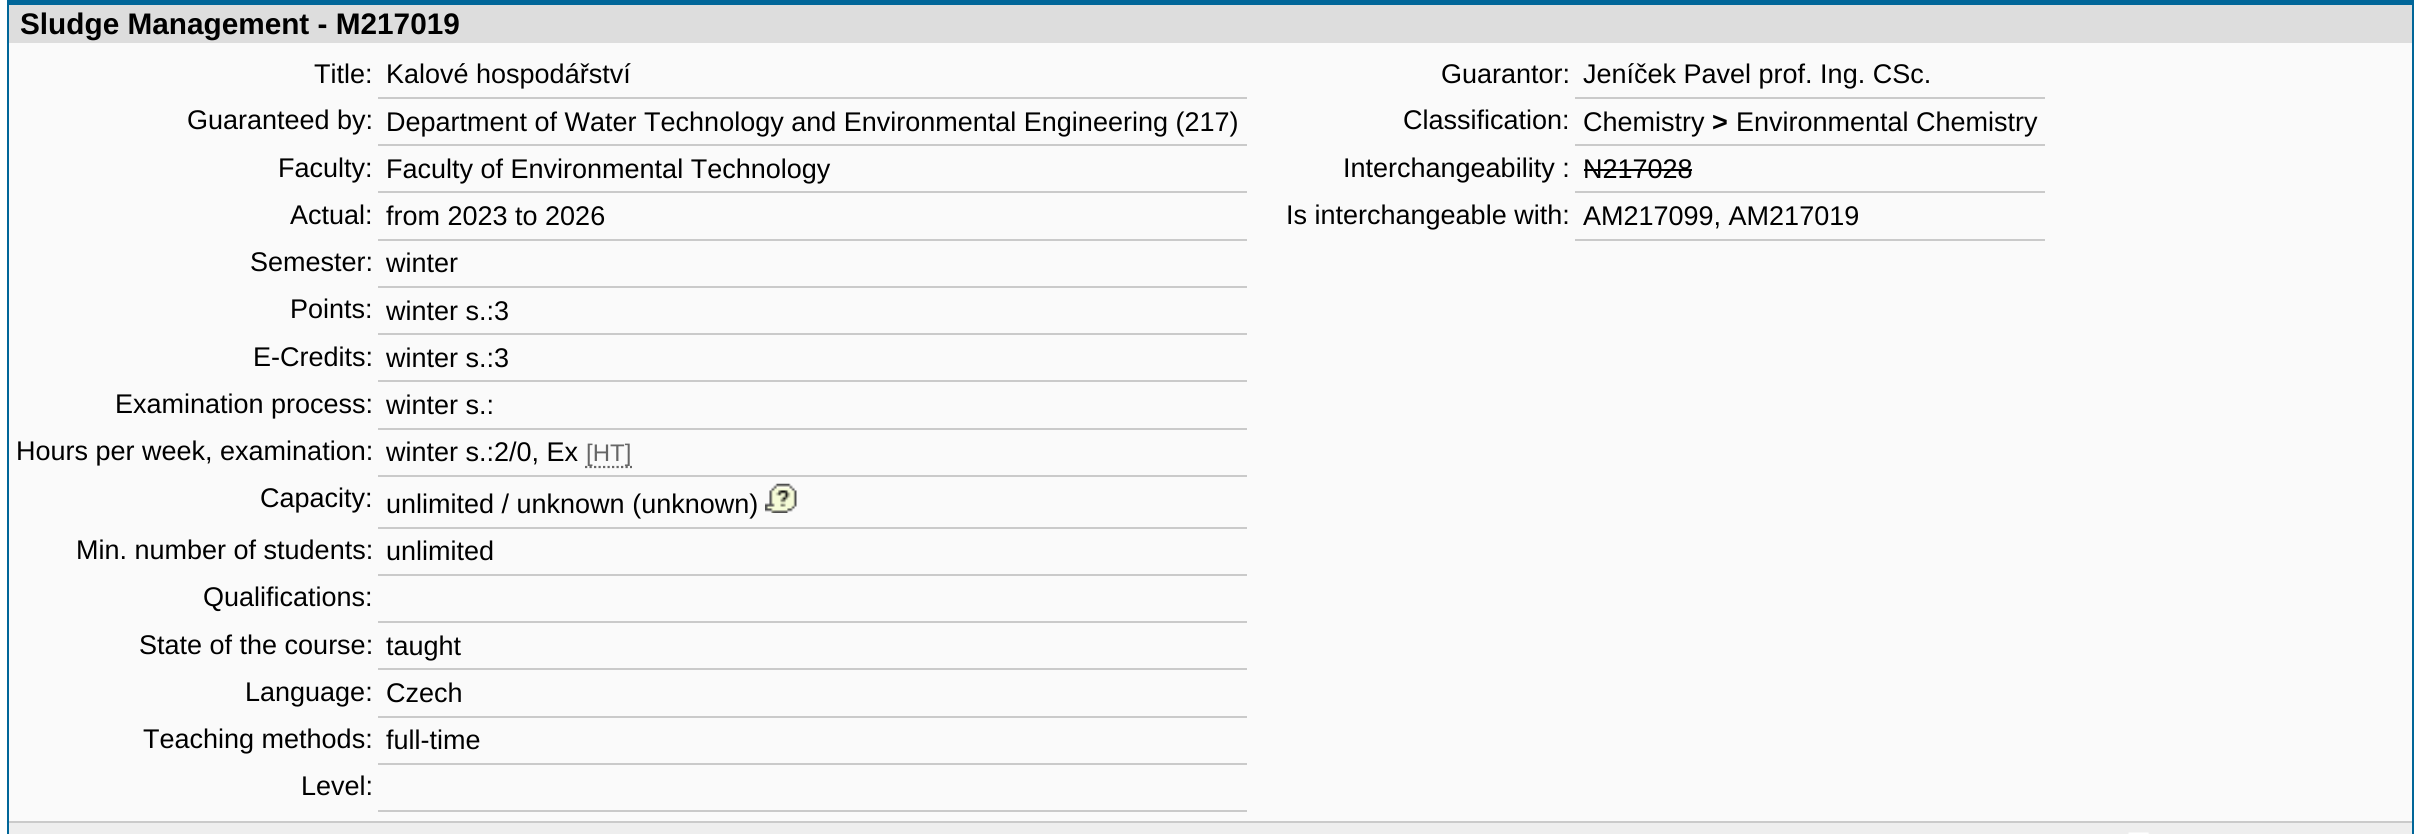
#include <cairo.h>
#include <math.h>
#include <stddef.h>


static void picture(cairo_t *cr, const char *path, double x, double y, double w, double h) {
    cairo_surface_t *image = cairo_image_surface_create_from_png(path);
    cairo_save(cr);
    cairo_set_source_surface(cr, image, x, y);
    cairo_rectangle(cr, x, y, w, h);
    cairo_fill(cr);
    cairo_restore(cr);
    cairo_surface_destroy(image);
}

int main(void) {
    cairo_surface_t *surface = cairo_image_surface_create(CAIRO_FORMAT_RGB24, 2419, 834);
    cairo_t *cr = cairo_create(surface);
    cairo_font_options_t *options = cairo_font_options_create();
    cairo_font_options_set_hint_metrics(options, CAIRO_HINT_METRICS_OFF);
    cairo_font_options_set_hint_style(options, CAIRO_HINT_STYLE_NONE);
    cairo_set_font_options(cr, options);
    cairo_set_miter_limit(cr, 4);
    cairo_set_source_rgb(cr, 1, 1, 1);
    cairo_paint(cr);
    cairo_set_source_rgb(cr, 0.98, 0.98, 0.98);
    cairo_rectangle(cr, 9, 43, 2403, 778);
    cairo_fill(cr);
    cairo_set_source_rgb(cr, 0, 0.4, 0.6);
    cairo_rectangle(cr, 7, 0, 2407, 5);
    cairo_fill(cr);
    cairo_rectangle(cr, 2412, 0, 2, 834);
    cairo_fill(cr);
    cairo_rectangle(cr, 7, 0, 2, 834);
    cairo_fill(cr);
    cairo_set_source_rgb(cr, 0.867, 0.867, 0.867);
    cairo_rectangle(cr, 9, 5, 2403, 38);
    cairo_fill(cr);
    cairo_select_font_face(cr, "Liberation Sans", CAIRO_FONT_SLANT_NORMAL, CAIRO_FONT_WEIGHT_BOLD);
    cairo_set_font_size(cr, 29.75);
    cairo_set_source_rgb(cr, 0, 0, 0);
    cairo_move_to(cr, 20, 34);
    cairo_show_text(cr, "Sludge Management - M217019");
    cairo_select_font_face(cr, "Liberation Sans", CAIRO_FONT_SLANT_NORMAL, CAIRO_FONT_WEIGHT_NORMAL);
    cairo_set_font_size(cr, 27);
    cairo_move_to(cr, 314, 83);
    cairo_show_text(cr, "Title:");
    cairo_set_source_rgb(cr, 0.792, 0.792, 0.792);
    cairo_rectangle(cr, 378, 97, 869, 2);
    cairo_fill(cr);
    cairo_set_source_rgb(cr, 0, 0, 0);
    cairo_move_to(cr, 386, 83);
    cairo_show_text(cr, "Kalové hospodářství");
    cairo_move_to(cr, 187, 129);
    cairo_show_text(cr, "Guaranteed by:");
    cairo_set_source_rgb(cr, 0.792, 0.792, 0.792);
    cairo_rectangle(cr, 378, 144, 869, 2);
    cairo_fill(cr);
    cairo_set_source_rgb(cr, 0, 0, 0);
    cairo_move_to(cr, 386, 131);
    cairo_show_text(cr, "Department of Water Technology and Environmental Engineering (217)");
    cairo_move_to(cr, 278, 177);
    cairo_show_text(cr, "Faculty:");
    cairo_set_source_rgb(cr, 0.792, 0.792, 0.792);
    cairo_rectangle(cr, 378, 191, 869, 2);
    cairo_fill(cr);
    cairo_set_source_rgb(cr, 0, 0, 0);
    cairo_move_to(cr, 386, 178);
    cairo_show_text(cr, "Faculty of Environmental Technology");
    cairo_move_to(cr, 290, 224);
    cairo_show_text(cr, "Actual:");
    cairo_set_source_rgb(cr, 0.792, 0.792, 0.792);
    cairo_rectangle(cr, 378, 239, 869, 2);
    cairo_fill(cr);
    cairo_set_source_rgb(cr, 0, 0, 0);
    cairo_move_to(cr, 386, 225);
    cairo_show_text(cr, "from 2023 to 2026");
    cairo_move_to(cr, 250, 271);
    cairo_show_text(cr, "Semester:");
    cairo_set_source_rgb(cr, 0.792, 0.792, 0.792);
    cairo_rectangle(cr, 378, 286, 869, 2);
    cairo_fill(cr);
    cairo_set_source_rgb(cr, 0, 0, 0);
    cairo_move_to(cr, 386, 272);
    cairo_show_text(cr, "winter");
    cairo_move_to(cr, 290, 318);
    cairo_show_text(cr, "Points:");
    cairo_set_source_rgb(cr, 0.792, 0.792, 0.792);
    cairo_rectangle(cr, 378, 333, 869, 2);
    cairo_fill(cr);
    cairo_set_source_rgb(cr, 0, 0, 0);
    cairo_move_to(cr, 386, 320);
    cairo_show_text(cr, "winter s.:3");
    cairo_move_to(cr, 253, 366);
    cairo_show_text(cr, "E-Credits:");
    cairo_set_source_rgb(cr, 0.792, 0.792, 0.792);
    cairo_rectangle(cr, 378, 380, 869, 2);
    cairo_fill(cr);
    cairo_set_source_rgb(cr, 0, 0, 0);
    cairo_move_to(cr, 386, 367);
    cairo_show_text(cr, "winter s.:3");
    cairo_move_to(cr, 115, 413);
    cairo_show_text(cr, "Examination process:");
    cairo_set_source_rgb(cr, 0.792, 0.792, 0.792);
    cairo_rectangle(cr, 378, 428, 869, 2);
    cairo_fill(cr);
    cairo_set_source_rgb(cr, 0, 0, 0);
    cairo_move_to(cr, 386, 414);
    cairo_show_text(cr, "winter s.:");
    cairo_move_to(cr, 16, 460);
    cairo_show_text(cr, "Hours per week, examination:");
    cairo_set_source_rgb(cr, 0.792, 0.792, 0.792);
    cairo_rectangle(cr, 378, 475, 869, 2);
    cairo_fill(cr);
    cairo_set_source_rgb(cr, 0, 0, 0);
    cairo_move_to(cr, 386, 461);
    cairo_show_text(cr, "winter s.:2/0, Ex");
    cairo_new_path(cr);
    cairo_move_to(cr, 585, 467);
    cairo_line_to(cr, 632, 467);
    cairo_set_source_rgb(cr, 0.4, 0.4, 0.4);
    cairo_set_line_width(cr, 2.2);
    cairo_set_dash(cr, (double[]){2.25, 2.25}, 2, 0);
    cairo_stroke(cr);
    cairo_set_font_size(cr, 24);
    cairo_move_to(cr, 586, 461);
    cairo_show_text(cr, "[HT]");
    cairo_set_font_size(cr, 27);
    cairo_set_source_rgb(cr, 0, 0, 0);
    cairo_move_to(cr, 260, 507);
    cairo_show_text(cr, "Capacity:");
    cairo_set_source_rgb(cr, 0.792, 0.792, 0.792);
    cairo_rectangle(cr, 378, 527, 869, 2);
    cairo_fill(cr);
    cairo_set_source_rgb(cr, 0, 0, 0);
    cairo_move_to(cr, 386, 513);
    cairo_show_text(cr, "unlimited / unknown (unknown)");
    picture(cr, "img1.png", 765, 483, 32, 30);
    cairo_move_to(cr, 76, 559);
    cairo_show_text(cr, "Min. number of students:");
    cairo_set_source_rgb(cr, 0.792, 0.792, 0.792);
    cairo_rectangle(cr, 378, 574, 869, 2);
    cairo_fill(cr);
    cairo_set_source_rgb(cr, 0, 0, 0);
    cairo_move_to(cr, 386, 560);
    cairo_show_text(cr, "unlimited");
    cairo_move_to(cr, 203, 606);
    cairo_show_text(cr, "Qualifications:");
    cairo_set_source_rgb(cr, 0.792, 0.792, 0.792);
    cairo_rectangle(cr, 378, 621, 869, 2);
    cairo_fill(cr);
    cairo_set_source_rgb(cr, 0, 0, 0);
    cairo_move_to(cr, 139, 654);
    cairo_show_text(cr, "State of the course:");
    cairo_set_source_rgb(cr, 0.792, 0.792, 0.792);
    cairo_rectangle(cr, 378, 668, 869, 2);
    cairo_fill(cr);
    cairo_set_source_rgb(cr, 0, 0, 0);
    cairo_move_to(cr, 386, 655);
    cairo_show_text(cr, "taught");
    cairo_move_to(cr, 245, 701);
    cairo_show_text(cr, "Language:");
    cairo_set_source_rgb(cr, 0.792, 0.792, 0.792);
    cairo_rectangle(cr, 378, 716, 869, 2);
    cairo_fill(cr);
    cairo_set_source_rgb(cr, 0, 0, 0);
    cairo_move_to(cr, 386, 702);
    cairo_show_text(cr, "Czech");
    cairo_move_to(cr, 143, 748);
    cairo_show_text(cr, "Teaching methods:");
    cairo_set_source_rgb(cr, 0.792, 0.792, 0.792);
    cairo_rectangle(cr, 378, 763, 869, 2);
    cairo_fill(cr);
    cairo_set_source_rgb(cr, 0, 0, 0);
    cairo_move_to(cr, 386, 749);
    cairo_show_text(cr, "full-time");
    cairo_move_to(cr, 301, 795);
    cairo_show_text(cr, "Level:");
    cairo_set_source_rgb(cr, 0.792, 0.792, 0.792);
    cairo_rectangle(cr, 378, 810, 869, 2);
    cairo_fill(cr);
    cairo_set_source_rgb(cr, 0, 0, 0);
    cairo_move_to(cr, 1441, 83);
    cairo_show_text(cr, "Guarantor:");
    cairo_set_source_rgb(cr, 0.792, 0.792, 0.792);
    cairo_rectangle(cr, 1575, 97, 470, 2);
    cairo_fill(cr);
    cairo_set_source_rgb(cr, 0, 0, 0);
    cairo_move_to(cr, 1583, 83);
    cairo_show_text(cr, "Jeníček Pavel prof. Ing. CSc.");
    cairo_move_to(cr, 1403, 129);
    cairo_show_text(cr, "Classification:");
    cairo_set_source_rgb(cr, 0.792, 0.792, 0.792);
    cairo_rectangle(cr, 1575, 144, 470, 2);
    cairo_fill(cr);
    cairo_set_source_rgb(cr, 0, 0, 0);
    cairo_move_to(cr, 1583, 131);
    cairo_show_text(cr, "Chemistry");
    cairo_select_font_face(cr, "Liberation Sans", CAIRO_FONT_SLANT_NORMAL, CAIRO_FONT_WEIGHT_BOLD);
    cairo_move_to(cr, 1712, 131);
    cairo_show_text(cr, ">");
    cairo_select_font_face(cr, "Liberation Sans", CAIRO_FONT_SLANT_NORMAL, CAIRO_FONT_WEIGHT_NORMAL);
    cairo_move_to(cr, 1736, 131);
    cairo_show_text(cr, "Environmental Chemistry");
    cairo_move_to(cr, 1343, 177);
    cairo_show_text(cr, "Interchangeability :");
    cairo_set_source_rgb(cr, 0.792, 0.792, 0.792);
    cairo_rectangle(cr, 1575, 191, 470, 2);
    cairo_fill(cr);
    cairo_set_source_rgb(cr, 0, 0, 0);
    cairo_move_to(cr, 1583, 178);
    cairo_show_text(cr, "N217028");
    cairo_rectangle(cr, 1584, 169, 108, 2);
    cairo_fill(cr);
    cairo_move_to(cr, 1286, 224);
    cairo_show_text(cr, "Is interchangeable with:");
    cairo_set_source_rgb(cr, 0.792, 0.792, 0.792);
    cairo_rectangle(cr, 1575, 239, 470, 2);
    cairo_fill(cr);
    cairo_set_source_rgb(cr, 0, 0, 0);
    cairo_move_to(cr, 1583, 225);
    cairo_show_text(cr, "AM217099, AM217019");
    cairo_set_source_rgb(cr, 0.933, 0.933, 0.933);
    cairo_rectangle(cr, 9, 823, 2403, 11);
    cairo_fill(cr);
    cairo_set_source_rgb(cr, 0.792, 0.792, 0.792);
    cairo_rectangle(cr, 9, 821, 2403, 2);
    cairo_fill(cr);
    picture(cr, "img2.png", 2128, 832, 21, 2);
    cairo_surface_write_to_png(surface, "page.png");
    cairo_font_options_destroy(options);
    cairo_destroy(cr);
    cairo_surface_destroy(surface);
    return 0;
}
